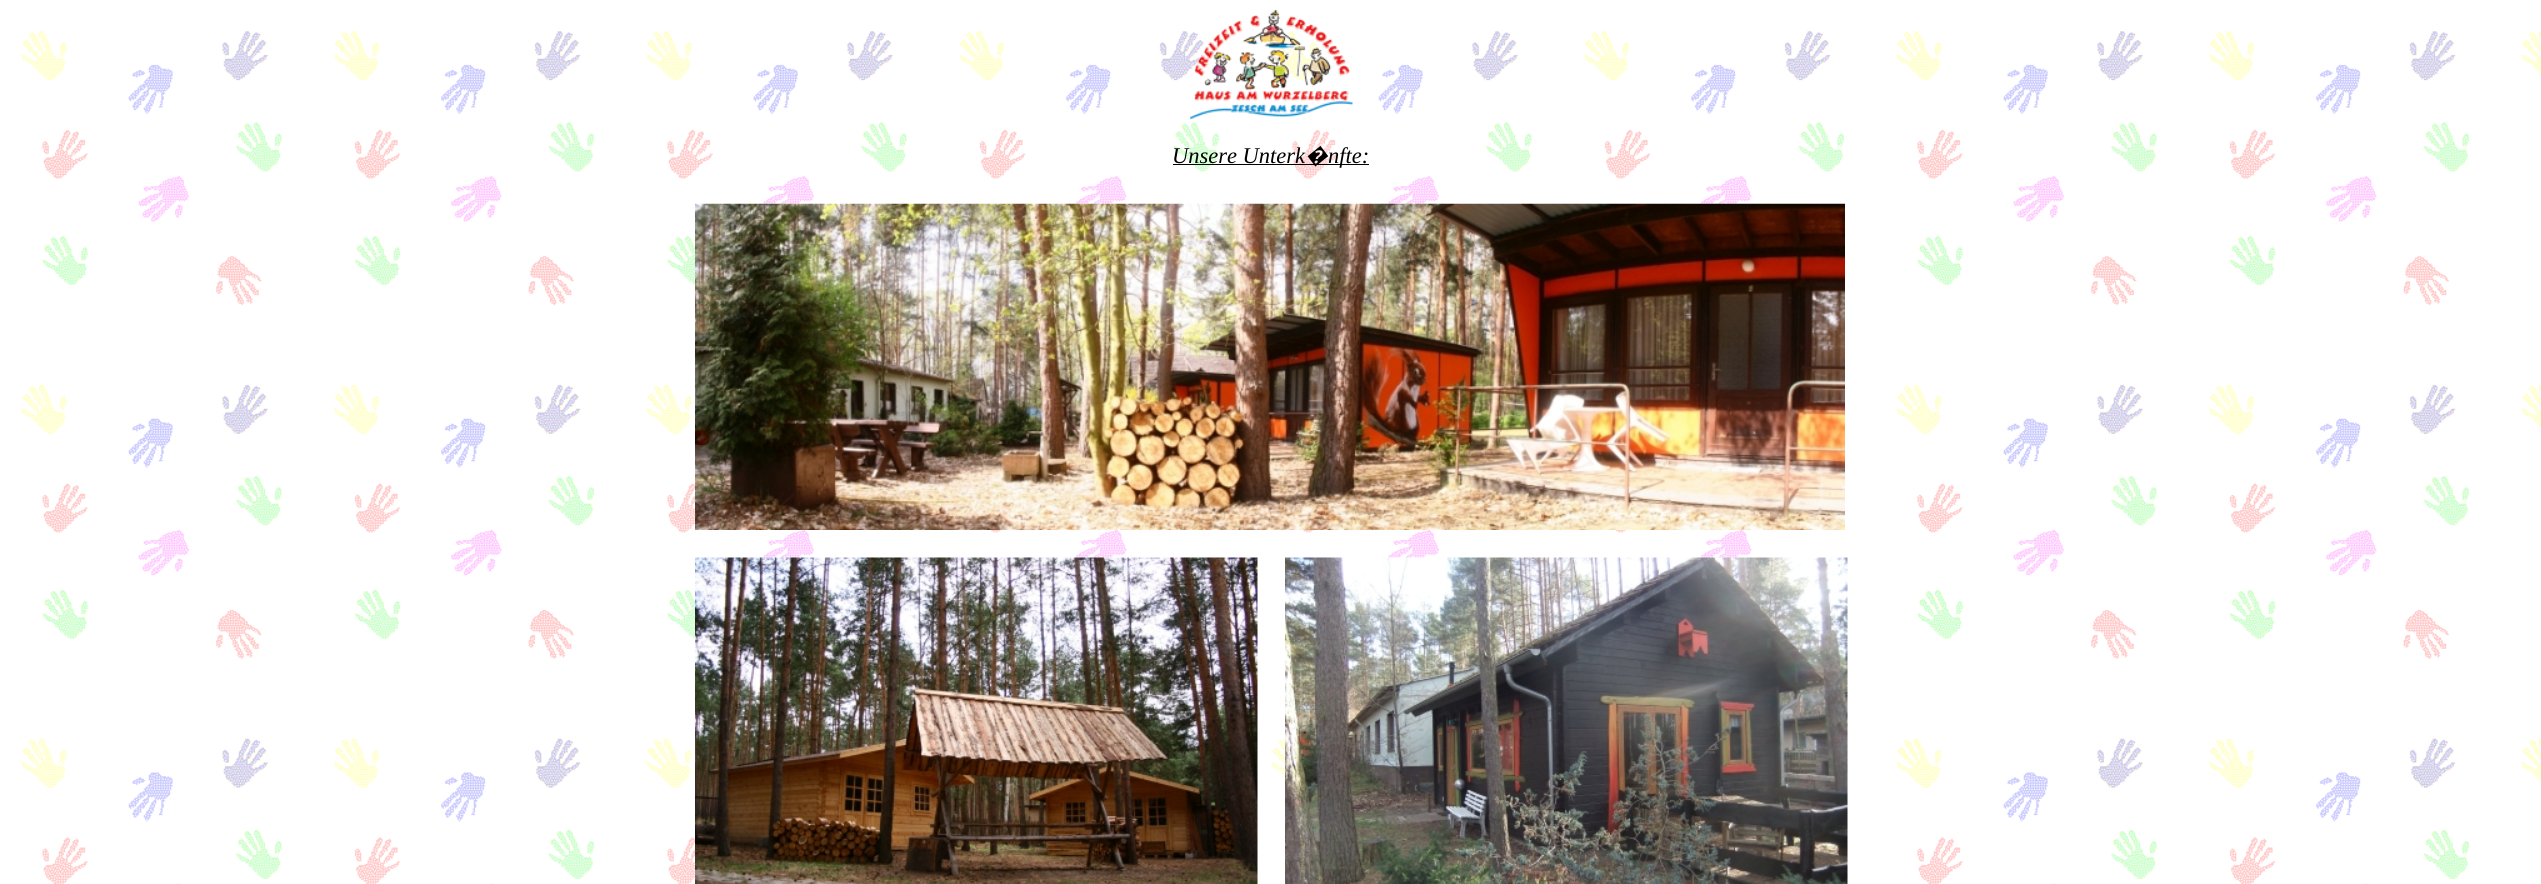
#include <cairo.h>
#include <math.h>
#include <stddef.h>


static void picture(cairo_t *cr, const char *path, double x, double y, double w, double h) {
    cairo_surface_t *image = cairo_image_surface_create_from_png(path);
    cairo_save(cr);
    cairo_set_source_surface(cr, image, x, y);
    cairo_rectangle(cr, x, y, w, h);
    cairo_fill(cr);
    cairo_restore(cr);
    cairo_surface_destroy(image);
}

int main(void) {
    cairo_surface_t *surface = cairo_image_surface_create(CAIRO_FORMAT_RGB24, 2541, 884);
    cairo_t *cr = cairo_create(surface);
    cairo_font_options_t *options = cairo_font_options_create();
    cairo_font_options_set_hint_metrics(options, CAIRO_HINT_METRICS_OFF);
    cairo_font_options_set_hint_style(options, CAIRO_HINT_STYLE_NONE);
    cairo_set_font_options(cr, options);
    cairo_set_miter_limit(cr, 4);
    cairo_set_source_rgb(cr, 1, 1, 1);
    cairo_paint(cr);
    picture(cr, "img1.png", 21, 31, 2520, 853);
    picture(cr, "img2.png", 1190, 10, 163, 109);
    cairo_select_font_face(cr, "Liberation Serif", CAIRO_FONT_SLANT_ITALIC, CAIRO_FONT_WEIGHT_NORMAL);
    cairo_set_font_size(cr, 22.5);
    cairo_set_source_rgb(cr, 0, 0, 0);
    cairo_move_to(cr, 1172, 163);
    cairo_show_text(cr, "Unsere Unterk");
    cairo_rectangle(cr, 1173, 164, 196, 1);
    cairo_fill(cr);
    cairo_select_font_face(cr, "Noto Sans", CAIRO_FONT_SLANT_ITALIC, CAIRO_FONT_WEIGHT_NORMAL);
    cairo_move_to(cr, 1305, 163);
    cairo_show_text(cr, "�");
    cairo_select_font_face(cr, "Liberation Serif", CAIRO_FONT_SLANT_ITALIC, CAIRO_FONT_WEIGHT_NORMAL);
    cairo_move_to(cr, 1328, 163);
    cairo_show_text(cr, "nfte:");
    picture(cr, "img3.png", 695, 203, 1150, 327);
    picture(cr, "img4.png", 695, 557, 563, 327);
    picture(cr, "img5.png", 1285, 557, 563, 327);
    cairo_surface_write_to_png(surface, "page.png");
    cairo_font_options_destroy(options);
    cairo_destroy(cr);
    cairo_surface_destroy(surface);
    return 0;
}
